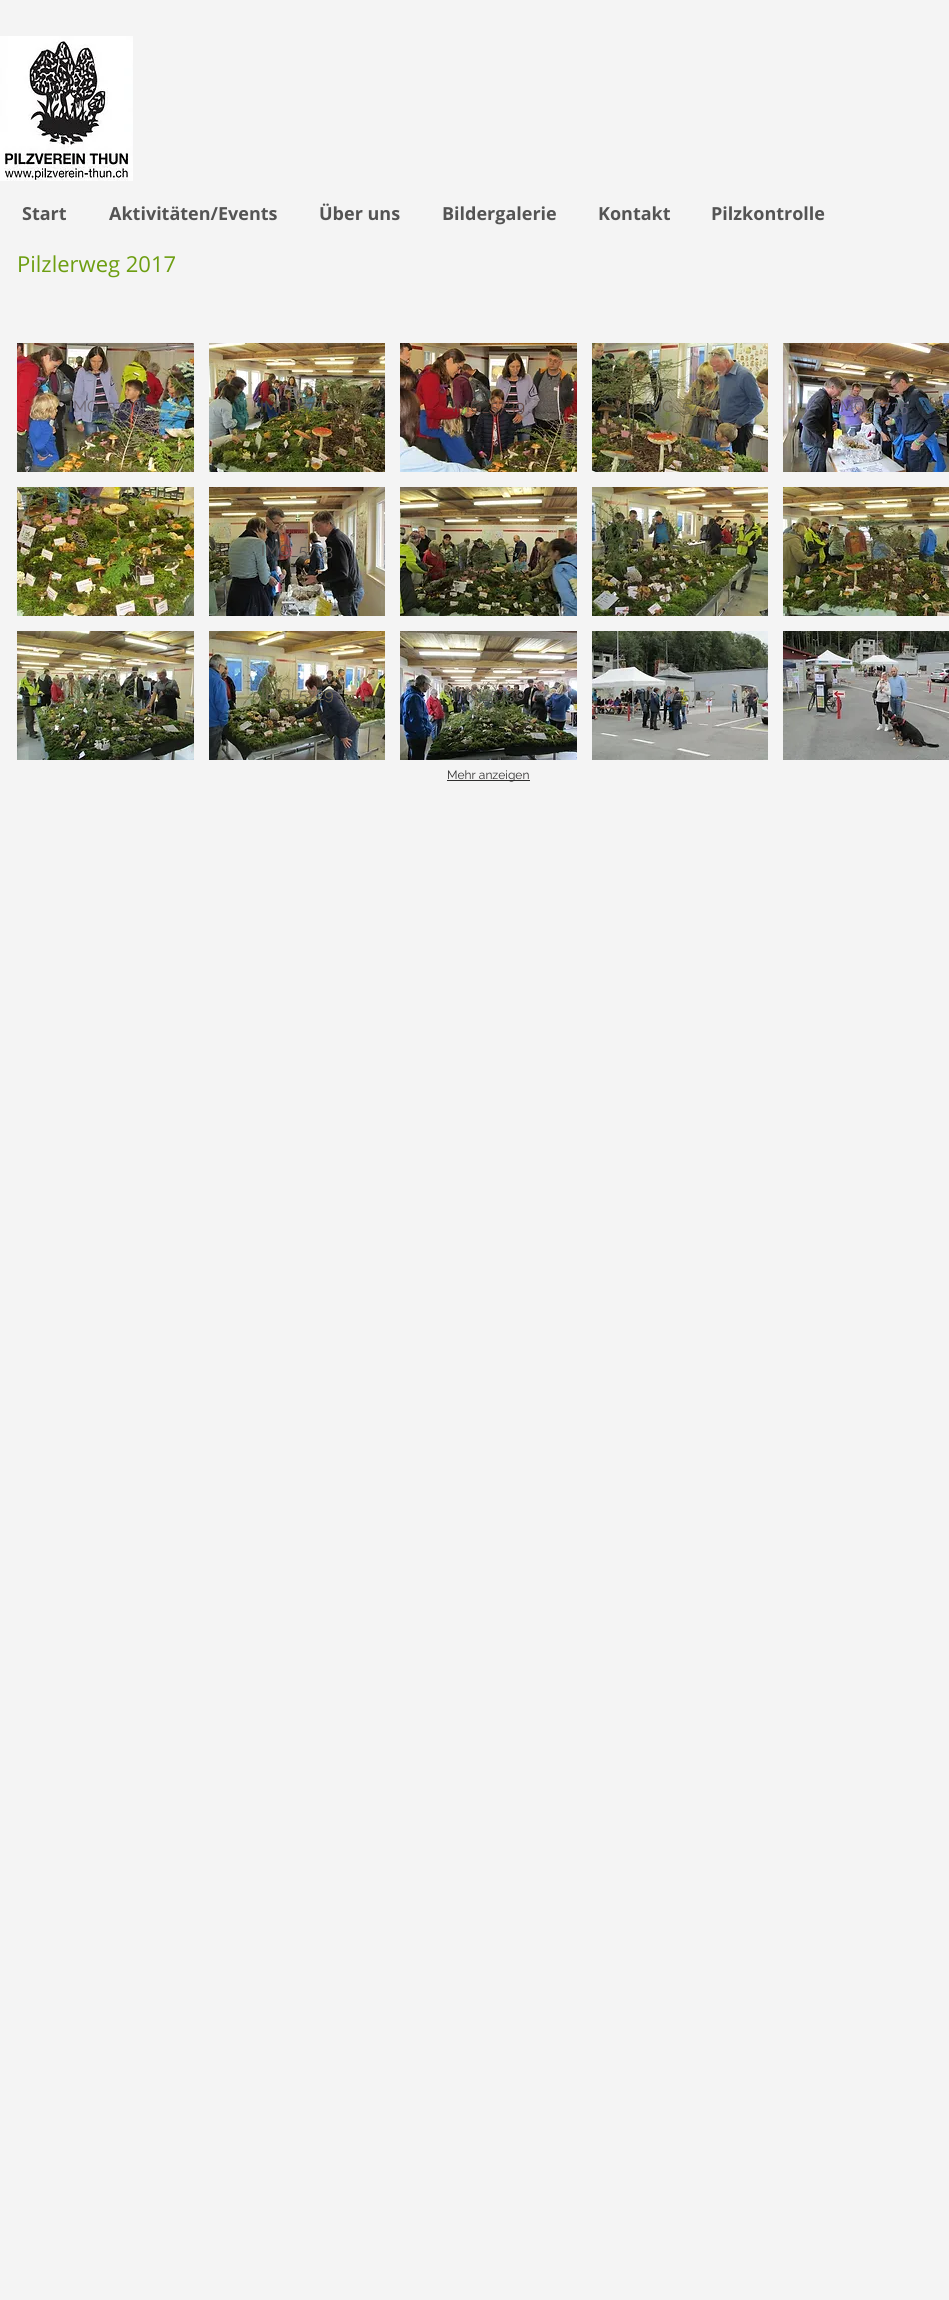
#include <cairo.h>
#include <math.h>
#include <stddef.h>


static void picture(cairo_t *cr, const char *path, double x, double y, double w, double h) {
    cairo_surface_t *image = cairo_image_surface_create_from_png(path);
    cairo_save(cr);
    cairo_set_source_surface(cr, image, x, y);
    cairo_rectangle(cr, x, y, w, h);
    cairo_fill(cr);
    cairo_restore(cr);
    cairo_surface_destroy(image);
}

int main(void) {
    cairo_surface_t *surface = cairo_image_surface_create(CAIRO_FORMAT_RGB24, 949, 2300);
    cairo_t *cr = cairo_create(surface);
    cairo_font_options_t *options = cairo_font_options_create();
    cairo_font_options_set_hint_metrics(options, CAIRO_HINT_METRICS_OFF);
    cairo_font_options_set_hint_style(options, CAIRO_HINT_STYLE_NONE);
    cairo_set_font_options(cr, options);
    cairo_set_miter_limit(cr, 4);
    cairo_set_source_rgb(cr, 0.957, 0.957, 0.957);
    cairo_paint(cr);
    picture(cr, "img1.png", 0, 36, 133, 145);
    cairo_select_font_face(cr, "Open Sans", CAIRO_FONT_SLANT_NORMAL, CAIRO_FONT_WEIGHT_BOLD);
    cairo_set_font_size(cr, 18);
    cairo_set_source_rgb(cr, 0.329, 0.329, 0.329);
    cairo_move_to(cr, 22, 220);
    cairo_show_text(cr, "Start");
    cairo_move_to(cr, 109, 220);
    cairo_show_text(cr, "Aktivitäten/Events");
    cairo_move_to(cr, 319, 220);
    cairo_show_text(cr, "Über uns");
    cairo_move_to(cr, 442, 220);
    cairo_show_text(cr, "Bildergalerie");
    cairo_move_to(cr, 598, 220);
    cairo_show_text(cr, "Kontakt");
    cairo_move_to(cr, 711, 220);
    cairo_show_text(cr, "Pilzkontrolle");
    cairo_select_font_face(cr, "Open Sans", CAIRO_FONT_SLANT_NORMAL, CAIRO_FONT_WEIGHT_NORMAL);
    cairo_set_font_size(cr, 22);
    cairo_set_source_rgb(cr, 0.427, 0.62, 0.067);
    cairo_move_to(cr, 17, 272);
    cairo_show_text(cr, "Pilzlerweg 2017");
    picture(cr, "img2.png", 17, 343, 177, 129);
    cairo_select_font_face(cr, "Raleway", CAIRO_FONT_SLANT_NORMAL, CAIRO_FONT_WEIGHT_NORMAL);
    cairo_set_font_size(cr, 16);
    cairo_set_source_rgb(cr, 0.431, 0.404, 0.443);
    cairo_move_to(cr, 69, 412);
    cairo_show_text(cr, "IMG_5738");
    picture(cr, "img3.png", 209, 343, 176, 129);
    cairo_set_source_rgb(cr, 0.31, 0.298, 0.231);
    cairo_move_to(cr, 260, 412);
    cairo_show_text(cr, "IMG_5740");
    picture(cr, "img4.png", 400, 343, 177, 129);
    cairo_set_source_rgb(cr, 0.388, 0.282, 0.255);
    cairo_move_to(cr, 452, 412);
    cairo_show_text(cr, "IMG_5739");
    picture(cr, "img5.png", 592, 343, 176, 129);
    cairo_set_source_rgb(cr, 0.435, 0.408, 0.314);
    cairo_move_to(cr, 644, 412);
    cairo_show_text(cr, "IMG_5737");
    picture(cr, "img6.png", 783, 343, 166, 129);
    cairo_set_source_rgb(cr, 0.408, 0.388, 0.471);
    cairo_move_to(cr, 836, 412);
    cairo_show_text(cr, "IMG_5735");
    picture(cr, "img7.png", 17, 487, 177, 129);
    picture(cr, "img8.png", 209, 487, 176, 129);
    cairo_set_source_rgb(cr, 0.357, 0.329, 0.322);
    cairo_move_to(cr, 261, 556);
    cairo_show_text(cr, "IMG_5733");
    picture(cr, "img9.png", 400, 487, 177, 129);
    cairo_set_source_rgb(cr, 0.349, 0.345, 0.251);
    cairo_move_to(cr, 453, 556);
    cairo_show_text(cr, "I");
    cairo_move_to(cr, 482, 556);
    cairo_show_text(cr, "_");
    cairo_move_to(cr, 507, 556);
    cairo_show_text(cr, "27");
    picture(cr, "img10.png", 592, 487, 176, 129);
    cairo_set_source_rgb(cr, 0.4, 0.392, 0.239);
    cairo_move_to(cr, 673, 556);
    cairo_show_text(cr, "_");
    picture(cr, "img11.png", 783, 487, 166, 129);
    picture(cr, "img12.png", 17, 631, 177, 129);
    picture(cr, "img13.png", 209, 631, 176, 129);
    cairo_set_source_rgb(cr, 0.435, 0.408, 0.314);
    cairo_move_to(cr, 261, 700);
    cairo_show_text(cr, "IMG_5729");
    picture(cr, "img14.png", 400, 631, 177, 129);
    cairo_set_source_rgb(cr, 0.357, 0.329, 0.322);
    cairo_move_to(cr, 452, 700);
    cairo_show_text(cr, "IMG_5730");
    picture(cr, "img15.png", 592, 631, 176, 129);
    cairo_set_source_rgb(cr, 0.518, 0.522, 0.498);
    cairo_move_to(cr, 644, 700);
    cairo_show_text(cr, "IMG_5752");
    picture(cr, "img16.png", 783, 631, 166, 129);
    cairo_set_source_rgb(cr, 0.184, 0.18, 0.18);
    cairo_rectangle(cr, 447, 780, 83, 1);
    cairo_fill(cr);
    cairo_set_font_size(cr, 12);
    cairo_move_to(cr, 447, 779);
    cairo_show_text(cr, "Mehr anzeigen");
    cairo_surface_write_to_png(surface, "page.png");
    cairo_font_options_destroy(options);
    cairo_destroy(cr);
    cairo_surface_destroy(surface);
    return 0;
}
